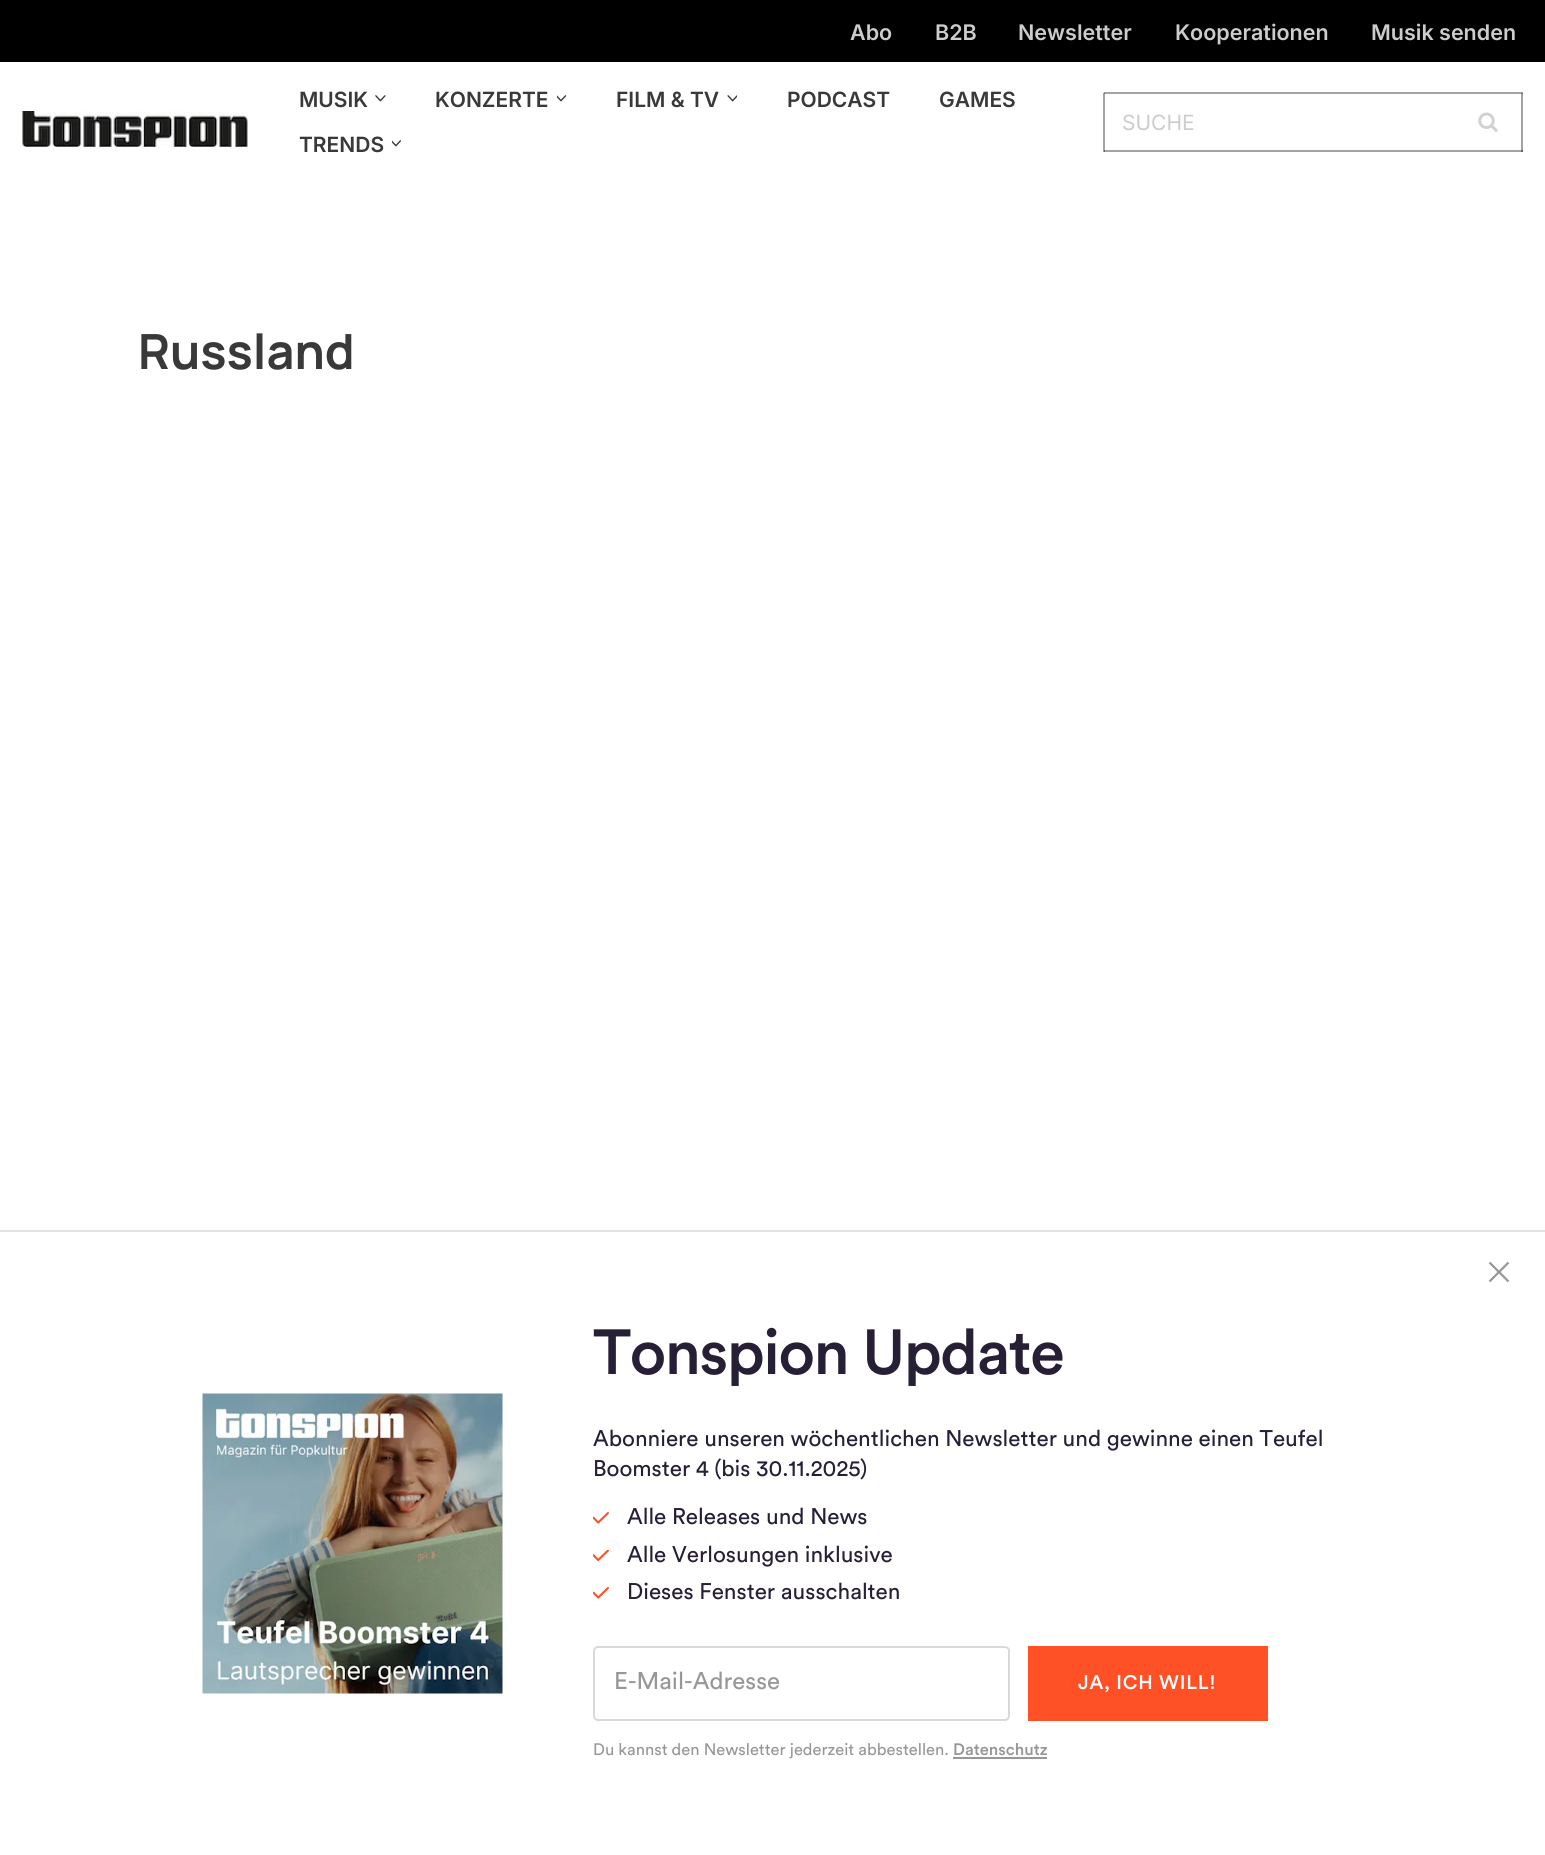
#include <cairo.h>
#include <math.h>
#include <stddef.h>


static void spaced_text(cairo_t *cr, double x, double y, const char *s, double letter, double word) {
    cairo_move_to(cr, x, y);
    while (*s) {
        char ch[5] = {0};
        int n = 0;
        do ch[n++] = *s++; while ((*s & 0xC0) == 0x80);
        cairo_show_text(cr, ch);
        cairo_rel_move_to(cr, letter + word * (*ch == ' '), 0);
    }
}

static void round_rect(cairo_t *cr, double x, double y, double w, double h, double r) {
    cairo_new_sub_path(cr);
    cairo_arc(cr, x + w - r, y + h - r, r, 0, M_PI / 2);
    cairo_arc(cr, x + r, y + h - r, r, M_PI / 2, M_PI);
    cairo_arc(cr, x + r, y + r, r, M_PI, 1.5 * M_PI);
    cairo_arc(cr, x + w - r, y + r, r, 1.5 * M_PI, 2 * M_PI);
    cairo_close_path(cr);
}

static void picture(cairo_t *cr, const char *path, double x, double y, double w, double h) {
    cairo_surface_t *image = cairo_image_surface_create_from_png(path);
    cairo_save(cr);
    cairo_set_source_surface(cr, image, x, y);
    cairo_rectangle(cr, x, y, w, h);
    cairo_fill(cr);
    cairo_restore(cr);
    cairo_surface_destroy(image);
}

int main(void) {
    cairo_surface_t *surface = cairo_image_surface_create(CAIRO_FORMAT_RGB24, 1545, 1855);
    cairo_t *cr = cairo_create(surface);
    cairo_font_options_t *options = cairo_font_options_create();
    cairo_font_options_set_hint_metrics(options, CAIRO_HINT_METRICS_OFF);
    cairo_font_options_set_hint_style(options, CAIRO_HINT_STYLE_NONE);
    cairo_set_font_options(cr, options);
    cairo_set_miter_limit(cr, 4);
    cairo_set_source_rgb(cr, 1, 1, 1);
    cairo_paint(cr);
    cairo_set_source_rgb(cr, 0, 0, 0);
    cairo_rectangle(cr, 0, 0, 1545, 62);
    cairo_fill(cr);
    cairo_select_font_face(cr, "Inter SemiBold", CAIRO_FONT_SLANT_NORMAL, CAIRO_FONT_WEIGHT_NORMAL);
    cairo_set_font_size(cr, 21.5);
    cairo_set_source_rgb(cr, 0.8, 0.8, 0.8);
    cairo_move_to(cr, 850, 40);
    cairo_show_text(cr, "Abo");
    cairo_move_to(cr, 935, 40);
    cairo_show_text(cr, "B2B");
    cairo_move_to(cr, 1018, 40);
    cairo_show_text(cr, "Newsletter");
    cairo_move_to(cr, 1175, 40);
    cairo_show_text(cr, "Kooperationen");
    cairo_move_to(cr, 1371, 40);
    cairo_show_text(cr, "Musik senden");
    cairo_set_source_rgb(cr, 0.639, 0.639, 0.639);
    cairo_rectangle(cr, 1455, 150, 68, 2);
    cairo_fill(cr);
    cairo_rectangle(cr, 1521, 93, 2, 59);
    cairo_fill(cr);
    cairo_set_source_rgb(cr, 0.408, 0.408, 0.408);
    cairo_rectangle(cr, 1521, 150, 2, 2);
    cairo_fill(cr);
    cairo_set_source_rgb(cr, 0.639, 0.639, 0.639);
    cairo_rectangle(cr, 1103, 93, 2, 59);
    cairo_fill(cr);
    picture(cr, "img1.png", 22, 111, 226, 36);
    cairo_set_font_size(cr, 21);
    cairo_set_source_rgb(cr, 0.224, 0.224, 0.224);
    cairo_move_to(cr, 299, 107);
    cairo_show_text(cr, "MUSIK");
    picture(cr, "img2.png", 375, 95, 11, 7);
    cairo_move_to(cr, 435, 107);
    cairo_show_text(cr, "KONZERTE");
    picture(cr, "img3.png", 557, 95, 10, 7);
    cairo_move_to(cr, 616, 107);
    cairo_show_text(cr, "FILM & TV");
    picture(cr, "img4.png", 727, 95, 10, 7);
    cairo_move_to(cr, 787, 107);
    cairo_show_text(cr, "PODCAST");
    cairo_move_to(cr, 939, 107);
    cairo_show_text(cr, "GAMES");
    cairo_move_to(cr, 299, 152);
    cairo_show_text(cr, "TRENDS");
    picture(cr, "img5.png", 392, 140, 9, 7);
    cairo_set_source_rgb(cr, 0.639, 0.639, 0.639);
    cairo_rectangle(cr, 1104, 92, 419, 2);
    cairo_fill(cr);
    cairo_set_source_rgb(cr, 0.408, 0.408, 0.408);
    cairo_rectangle(cr, 1104, 93, 1, 1);
    cairo_fill(cr);
    cairo_set_source_rgb(cr, 0.639, 0.639, 0.639);
    cairo_rectangle(cr, 1104, 150, 351, 2);
    cairo_fill(cr);
    cairo_set_source_rgb(cr, 0.408, 0.408, 0.408);
    cairo_rectangle(cr, 1104, 150, 1, 2);
    cairo_fill(cr);
    cairo_select_font_face(cr, "Inter", CAIRO_FONT_SLANT_NORMAL, CAIRO_FONT_WEIGHT_NORMAL);
    cairo_set_source_rgb(cr, 0.8, 0.8, 0.8);
    cairo_move_to(cr, 1122, 130);
    cairo_show_text(cr, "SUCHE");
    cairo_set_source_rgb(cr, 0.408, 0.408, 0.408);
    cairo_rectangle(cr, 1521, 93, 2, 1);
    cairo_fill(cr);
    picture(cr, "img6.png", 1478, 112, 20, 20);
    cairo_select_font_face(cr, "Manrope", CAIRO_FONT_SLANT_NORMAL, CAIRO_FONT_WEIGHT_BOLD);
    cairo_set_font_size(cr, 48.5);
    cairo_set_source_rgb(cr, 0.224, 0.224, 0.224);
    cairo_move_to(cr, 138, 369);
    cairo_show_text(cr, "Russland");
    cairo_set_source_rgb(cr, 0.89, 0.89, 0.89);
    cairo_rectangle(cr, 0, 1230, 1545, 2);
    cairo_fill(cr);
    picture(cr, "img7.png", 202, 1393, 301, 301);
    cairo_new_path(cr);
    cairo_move_to(cr, 1489.5, 1262.5);
    cairo_line_to(cr, 1508.5, 1281.5);
    cairo_move_to(cr, 1508.5, 1262.5);
    cairo_line_to(cr, 1489.5, 1281.5);
    cairo_set_source_rgb(cr, 0.592, 0.592, 0.592);
    cairo_set_line_width(cr, 2.2);
    cairo_stroke(cr);
    cairo_select_font_face(cr, "Circular Medium", CAIRO_FONT_SLANT_NORMAL, CAIRO_FONT_WEIGHT_NORMAL);
    cairo_set_font_size(cr, 63);
    cairo_set_source_rgb(cr, 0.153, 0.122, 0.212);
    spaced_text(cr, 593, 1374, "Tonspion Update", -1.5, 0);
    cairo_select_font_face(cr, "Circular", CAIRO_FONT_SLANT_NORMAL, CAIRO_FONT_WEIGHT_NORMAL);
    cairo_set_font_size(cr, 22.5);
    cairo_move_to(cr, 593, 1446);
    cairo_show_text(cr, "Abonniere unseren wöchentlichen Newsletter und gewinne einen Teufel");
    cairo_move_to(cr, 593, 1476);
    cairo_show_text(cr, "Boomster 4 (bis 30.11.2025)");
    picture(cr, "img8.png", 593, 1512, 16, 12);
    cairo_move_to(cr, 627, 1524);
    cairo_show_text(cr, "Alle Releases und News");
    picture(cr, "img9.png", 593, 1550, 16, 12);
    cairo_move_to(cr, 627, 1562);
    cairo_show_text(cr, "Alle Verlosungen inklusive");
    picture(cr, "img8.png", 593, 1587, 16, 12);
    cairo_move_to(cr, 627, 1599);
    cairo_show_text(cr, "Dieses Fenster ausschalten");
    round_rect(cr, 594, 1647, 415, 73, 4);
    cairo_set_source_rgb(cr, 0.851, 0.851, 0.851);
    cairo_set_line_width(cr, 2);
    cairo_stroke(cr);
    cairo_set_font_size(cr, 24);
    cairo_set_source_rgb(cr, 0.592, 0.592, 0.592);
    cairo_move_to(cr, 614, 1689);
    cairo_show_text(cr, "E-Mail-Adresse");
    cairo_set_source_rgb(cr, 1, 0.314, 0.149);
    cairo_rectangle(cr, 1028, 1646, 240, 75);
    cairo_fill(cr);
    cairo_select_font_face(cr, "Circular Medium", CAIRO_FONT_SLANT_NORMAL, CAIRO_FONT_WEIGHT_NORMAL);
    cairo_set_font_size(cr, 19.5);
    cairo_set_source_rgb(cr, 1, 1, 1);
    spaced_text(cr, 1078, 1689, "JA, ICH WILL!", 0.75, 0);
    cairo_select_font_face(cr, "Circular", CAIRO_FONT_SLANT_NORMAL, CAIRO_FONT_WEIGHT_NORMAL);
    cairo_set_font_size(cr, 16.5);
    cairo_set_source_rgb(cr, 0.592, 0.592, 0.592);
    cairo_move_to(cr, 593, 1755);
    cairo_show_text(cr, "Du kannst den Newsletter jederzeit abbestellen.");
    cairo_select_font_face(cr, "Circular Medium", CAIRO_FONT_SLANT_NORMAL, CAIRO_FONT_WEIGHT_NORMAL);
    cairo_move_to(cr, 953, 1755);
    cairo_show_text(cr, "Datenschutz");
    cairo_rectangle(cr, 953, 1757, 94, 2);
    cairo_fill(cr);
    cairo_surface_write_to_png(surface, "page.png");
    cairo_font_options_destroy(options);
    cairo_destroy(cr);
    cairo_surface_destroy(surface);
    return 0;
}
